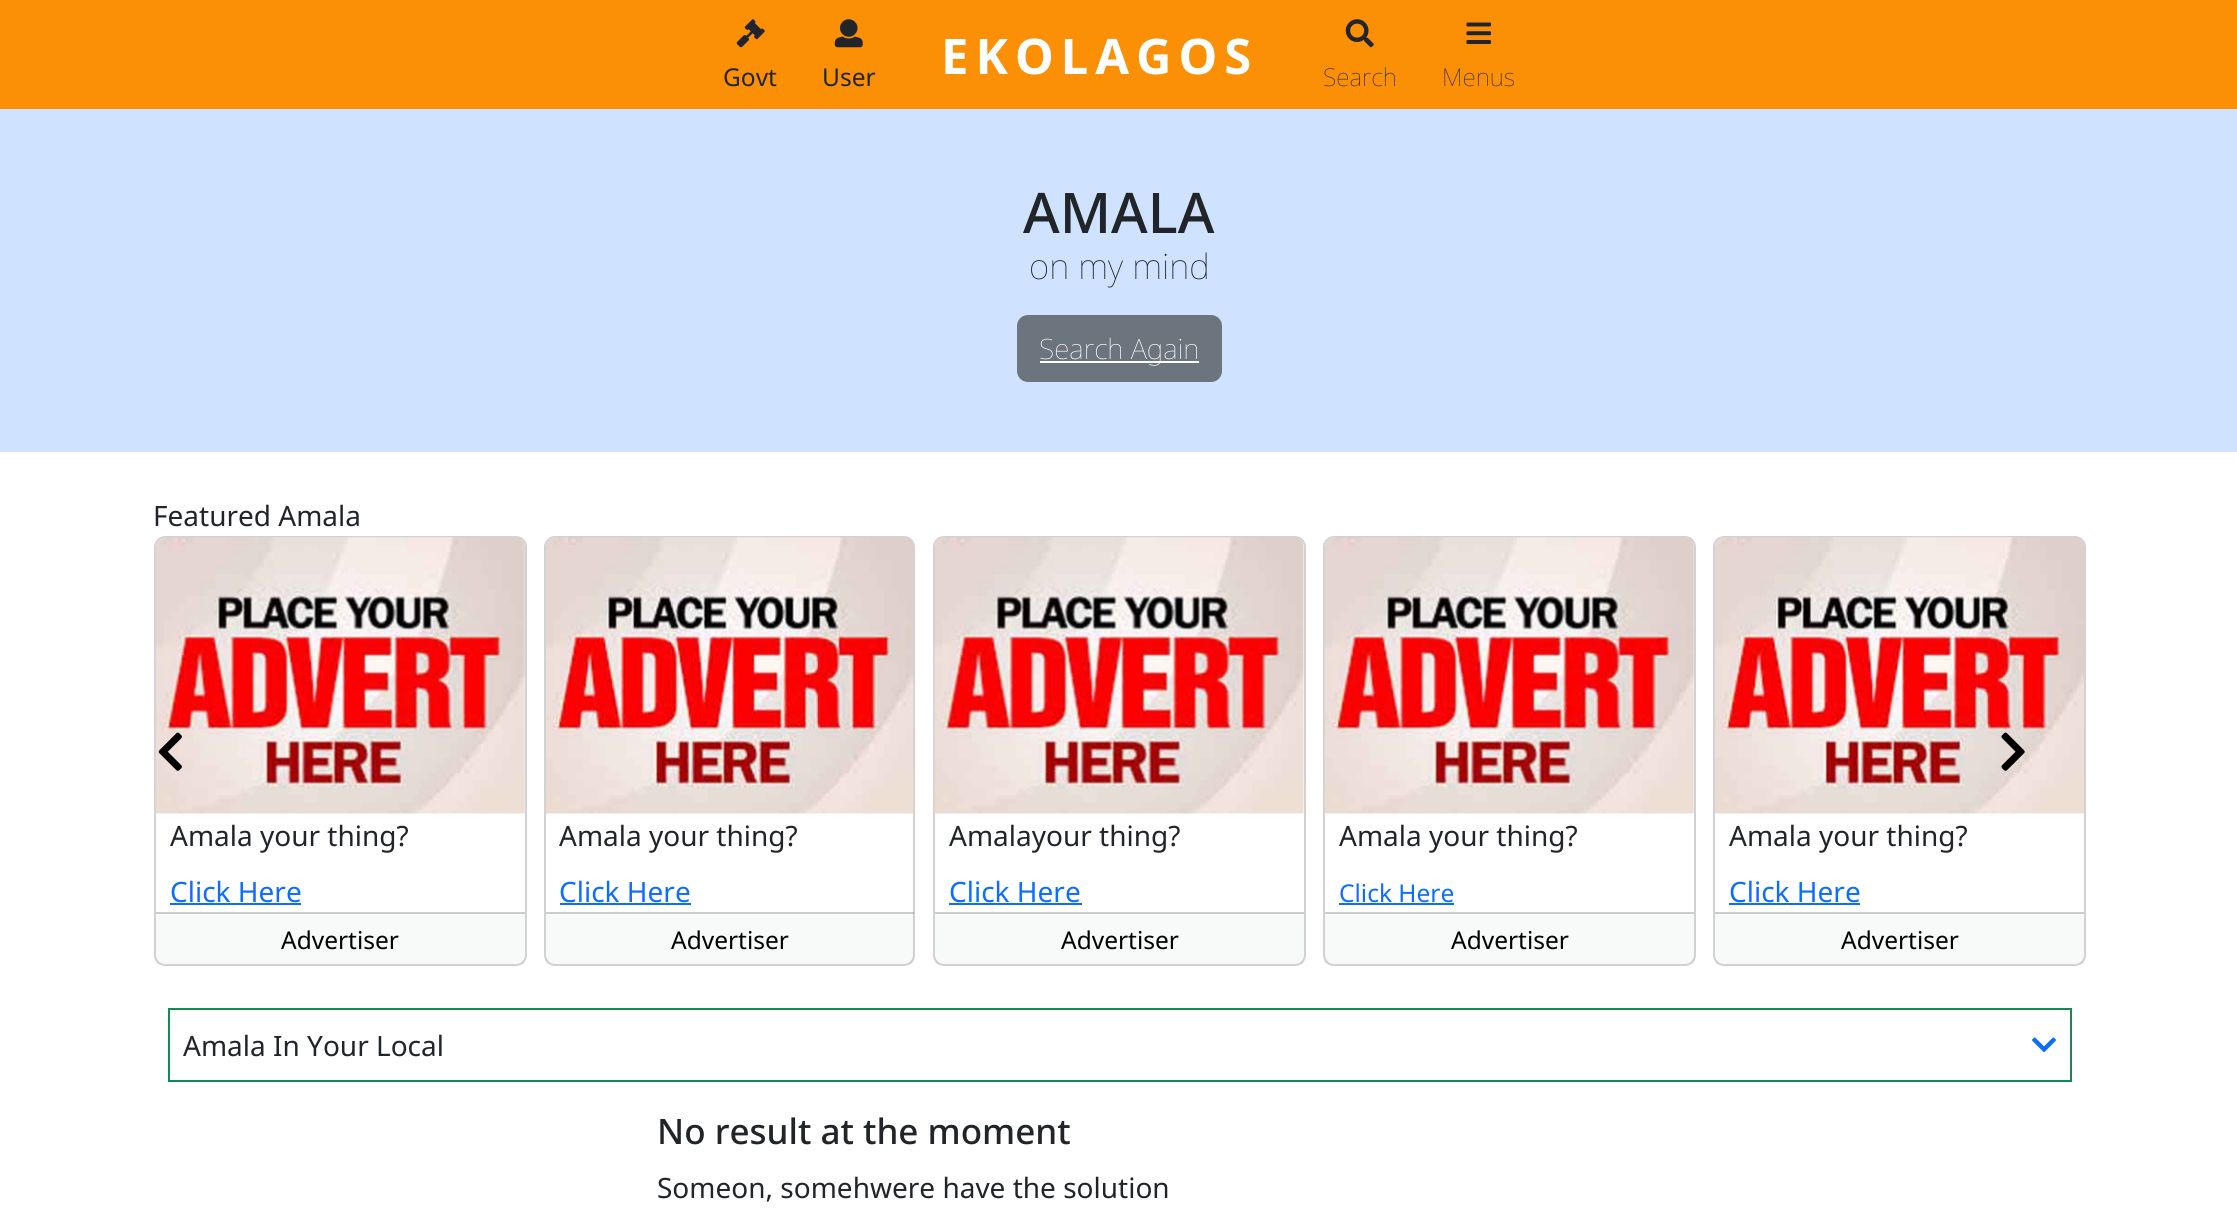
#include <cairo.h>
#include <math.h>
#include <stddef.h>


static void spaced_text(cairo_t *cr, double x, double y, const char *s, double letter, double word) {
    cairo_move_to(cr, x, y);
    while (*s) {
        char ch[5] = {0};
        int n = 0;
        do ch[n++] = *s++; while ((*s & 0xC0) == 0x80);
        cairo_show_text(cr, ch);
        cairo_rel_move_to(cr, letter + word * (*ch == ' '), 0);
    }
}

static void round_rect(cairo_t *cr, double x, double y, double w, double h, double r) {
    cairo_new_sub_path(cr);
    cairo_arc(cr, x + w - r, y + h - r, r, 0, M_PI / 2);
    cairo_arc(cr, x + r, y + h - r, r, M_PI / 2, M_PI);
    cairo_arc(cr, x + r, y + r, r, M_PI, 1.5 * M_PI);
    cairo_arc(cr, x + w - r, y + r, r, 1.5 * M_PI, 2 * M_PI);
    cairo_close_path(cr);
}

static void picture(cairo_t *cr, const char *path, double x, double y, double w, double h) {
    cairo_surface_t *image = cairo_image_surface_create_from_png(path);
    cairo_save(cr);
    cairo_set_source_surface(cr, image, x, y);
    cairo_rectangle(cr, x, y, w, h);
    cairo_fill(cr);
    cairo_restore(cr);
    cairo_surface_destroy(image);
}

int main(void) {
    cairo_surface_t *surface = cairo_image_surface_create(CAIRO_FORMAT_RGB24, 2237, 1216);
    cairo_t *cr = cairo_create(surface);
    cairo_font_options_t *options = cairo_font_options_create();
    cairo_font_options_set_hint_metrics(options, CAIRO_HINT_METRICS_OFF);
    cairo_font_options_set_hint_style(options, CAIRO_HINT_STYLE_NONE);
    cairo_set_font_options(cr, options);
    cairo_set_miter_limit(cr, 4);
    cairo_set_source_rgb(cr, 1, 1, 1);
    cairo_paint(cr);
    cairo_set_source_rgb(cr, 0.984, 0.561, 0.02);
    cairo_rectangle(cr, 0, 0, 2237, 109);
    cairo_fill(cr);
    cairo_select_font_face(cr, "Noto Sans", CAIRO_FONT_SLANT_NORMAL, CAIRO_FONT_WEIGHT_BOLD);
    cairo_set_font_size(cr, 49);
    cairo_set_source_rgb(cr, 1, 1, 1);
    spaced_text(cr, 941, 74, "EKOLAGOS", 7, 0);
    picture(cr, "img1.png", 736, 19, 29, 29);
    cairo_select_font_face(cr, "Noto Sans", CAIRO_FONT_SLANT_NORMAL, CAIRO_FONT_WEIGHT_NORMAL);
    cairo_set_font_size(cr, 24.5);
    cairo_set_source_rgb(cr, 0.129, 0.145, 0.161);
    cairo_move_to(cr, 723, 86);
    cairo_show_text(cr, "Govt");
    picture(cr, "img2.png", 834, 19, 29, 29);
    cairo_move_to(cr, 822, 86);
    cairo_show_text(cr, "User");
    picture(cr, "img3.png", 1345, 19, 29, 29);
    cairo_select_font_face(cr, "Noto Sans Thin", CAIRO_FONT_SLANT_NORMAL, CAIRO_FONT_WEIGHT_NORMAL);
    cairo_move_to(cr, 1323, 86);
    cairo_show_text(cr, "Search");
    picture(cr, "img4.png", 1466, 22, 25, 22);
    cairo_move_to(cr, 1442, 86);
    cairo_show_text(cr, "Menus");
    cairo_set_source_rgb(cr, 0.812, 0.886, 1);
    cairo_rectangle(cr, 0, 109, 2237, 343);
    cairo_fill(cr);
    cairo_select_font_face(cr, "Noto Sans Medium", CAIRO_FONT_SLANT_NORMAL, CAIRO_FONT_WEIGHT_NORMAL);
    cairo_set_font_size(cr, 56);
    cairo_set_source_rgb(cr, 0.129, 0.145, 0.161);
    cairo_move_to(cr, 1023, 233);
    cairo_show_text(cr, "AMALA");
    cairo_select_font_face(cr, "Noto Sans Thin", CAIRO_FONT_SLANT_NORMAL, CAIRO_FONT_WEIGHT_NORMAL);
    cairo_set_font_size(cr, 35);
    cairo_move_to(cr, 1029, 279);
    cairo_show_text(cr, "on my mind");
    cairo_set_source_rgb(cr, 0.424, 0.459, 0.49);
    round_rect(cr, 1018, 316, 203, 65, 10);
    cairo_fill_preserve(cr);
    cairo_stroke(cr);
    cairo_set_source_rgb(cr, 1, 1, 1);
    cairo_rectangle(cr, 1040, 361, 159, 2);
    cairo_fill(cr);
    cairo_set_font_size(cr, 28);
    cairo_move_to(cr, 1039, 359);
    cairo_show_text(cr, "Search Again");
    cairo_select_font_face(cr, "Noto Sans", CAIRO_FONT_SLANT_NORMAL, CAIRO_FONT_WEIGHT_NORMAL);
    cairo_set_source_rgb(cr, 0.129, 0.145, 0.161);
    cairo_move_to(cr, 153, 526);
    cairo_show_text(cr, "Featured Amala");
    round_rect(cr, 155, 537, 371, 428, 10);
    cairo_set_source_rgb(cr, 0.824, 0.824, 0.824);
    cairo_stroke(cr);
    picture(cr, "img7.png", 155, 537, 370, 278);
    picture(cr, "img5.png", 158, 732, 24, 39);
    round_rect(cr, 1714, 537, 371, 428, 10);
    cairo_stroke(cr);
    picture(cr, "img10.png", 1715, 537, 369, 278);
    picture(cr, "img6.png", 2001, 732, 24, 39);
    cairo_set_source_rgb(cr, 0.129, 0.145, 0.161);
    cairo_move_to(cr, 170, 846);
    cairo_show_text(cr, "Amala your thing?");
    cairo_set_source_rgb(cr, 0.051, 0.431, 0.992);
    cairo_move_to(cr, 170, 902);
    cairo_show_text(cr, "Click Here");
    cairo_rectangle(cr, 170, 903, 131, 2);
    cairo_fill(cr);
    cairo_set_source_rgba(cr, 0.129, 0.145, 0.161, 0.03);
    cairo_rectangle(cr, 156, 914, 369, 50);
    cairo_fill(cr);
    cairo_set_source_rgb(cr, 0.804, 0.804, 0.804);
    cairo_rectangle(cr, 156, 912, 369, 2);
    cairo_fill(cr);
    cairo_set_font_size(cr, 24.5);
    cairo_set_source_rgb(cr, 0, 0, 0);
    cairo_move_to(cr, 281, 949);
    cairo_show_text(cr, "Advertiser");
    round_rect(cr, 545, 537, 369, 428, 10);
    cairo_set_source_rgb(cr, 0.824, 0.824, 0.824);
    cairo_stroke(cr);
    picture(cr, "img8.png", 546, 537, 368, 278);
    cairo_set_font_size(cr, 28);
    cairo_set_source_rgb(cr, 0.129, 0.145, 0.161);
    cairo_move_to(cr, 559, 846);
    cairo_show_text(cr, "Amala your thing?");
    cairo_set_source_rgb(cr, 0.051, 0.431, 0.992);
    cairo_move_to(cr, 559, 902);
    cairo_show_text(cr, "Click Here");
    cairo_rectangle(cr, 560, 903, 131, 2);
    cairo_fill(cr);
    cairo_set_source_rgba(cr, 0.129, 0.145, 0.161, 0.03);
    cairo_rectangle(cr, 546, 912, 368, 52);
    cairo_fill(cr);
    cairo_set_source_rgba(cr, 0, 0, 0, 0.18);
    cairo_rectangle(cr, 546, 912, 368, 2);
    cairo_fill(cr);
    cairo_set_font_size(cr, 24.5);
    cairo_set_source_rgb(cr, 0, 0, 0);
    cairo_move_to(cr, 671, 949);
    cairo_show_text(cr, "Advertiser");
    round_rect(cr, 934, 537, 371, 428, 10);
    cairo_set_source_rgb(cr, 0.824, 0.824, 0.824);
    cairo_stroke(cr);
    picture(cr, "img9.png", 934, 537, 370, 278);
    cairo_set_font_size(cr, 28);
    cairo_set_source_rgb(cr, 0.129, 0.145, 0.161);
    cairo_move_to(cr, 949, 846);
    cairo_show_text(cr, "Amalayour thing?");
    cairo_set_source_rgb(cr, 0.051, 0.431, 0.992);
    cairo_move_to(cr, 949, 902);
    cairo_show_text(cr, "Click Here");
    cairo_rectangle(cr, 949, 903, 133, 2);
    cairo_fill(cr);
    cairo_set_source_rgba(cr, 0.129, 0.145, 0.161, 0.03);
    cairo_rectangle(cr, 935, 914, 369, 50);
    cairo_fill(cr);
    cairo_set_source_rgb(cr, 0.804, 0.804, 0.804);
    cairo_rectangle(cr, 935, 912, 369, 2);
    cairo_fill(cr);
    cairo_set_font_size(cr, 24.5);
    cairo_set_source_rgb(cr, 0, 0, 0);
    cairo_move_to(cr, 1061, 949);
    cairo_show_text(cr, "Advertiser");
    round_rect(cr, 1324, 537, 371, 428, 10);
    cairo_set_source_rgb(cr, 0.824, 0.824, 0.824);
    cairo_stroke(cr);
    picture(cr, "img7.png", 1324, 537, 370, 278);
    cairo_set_font_size(cr, 28);
    cairo_set_source_rgb(cr, 0.129, 0.145, 0.161);
    cairo_move_to(cr, 1339, 846);
    cairo_show_text(cr, "Amala your thing?");
    cairo_set_font_size(cr, 24.5);
    cairo_set_source_rgb(cr, 0.051, 0.431, 0.992);
    cairo_move_to(cr, 1339, 902);
    cairo_show_text(cr, "Click Here");
    cairo_rectangle(cr, 1339, 903, 115, 2);
    cairo_fill(cr);
    cairo_set_source_rgba(cr, 0.129, 0.145, 0.161, 0.03);
    cairo_rectangle(cr, 1325, 914, 369, 50);
    cairo_fill(cr);
    cairo_set_source_rgb(cr, 0.804, 0.804, 0.804);
    cairo_rectangle(cr, 1325, 912, 369, 2);
    cairo_fill(cr);
    cairo_set_source_rgb(cr, 0, 0, 0);
    cairo_move_to(cr, 1451, 949);
    cairo_show_text(cr, "Advertiser");
    cairo_set_font_size(cr, 28);
    cairo_set_source_rgb(cr, 0.129, 0.145, 0.161);
    cairo_move_to(cr, 1729, 846);
    cairo_show_text(cr, "Amala your thing?");
    cairo_set_source_rgb(cr, 0.051, 0.431, 0.992);
    cairo_move_to(cr, 1729, 902);
    cairo_show_text(cr, "Click Here");
    cairo_rectangle(cr, 1729, 903, 131, 2);
    cairo_fill(cr);
    cairo_set_source_rgba(cr, 0.129, 0.145, 0.161, 0.03);
    cairo_rectangle(cr, 1715, 914, 369, 50);
    cairo_fill(cr);
    cairo_set_source_rgb(cr, 0.804, 0.804, 0.804);
    cairo_rectangle(cr, 1715, 912, 369, 2);
    cairo_fill(cr);
    cairo_set_font_size(cr, 24.5);
    cairo_set_source_rgb(cr, 0, 0, 0);
    cairo_move_to(cr, 1841, 949);
    cairo_show_text(cr, "Advertiser");
    cairo_rectangle(cr, 169, 1009, 1902, 72);
    cairo_set_source_rgb(cr, 0.098, 0.529, 0.329);
    cairo_stroke(cr);
    cairo_set_font_size(cr, 28);
    cairo_set_source_rgb(cr, 0.129, 0.145, 0.161);
    cairo_move_to(cr, 183, 1056);
    cairo_show_text(cr, "Amala In Your Local");
    picture(cr, "img11.png", 2032, 1037, 24, 15);
    cairo_select_font_face(cr, "Noto Sans Medium", CAIRO_FONT_SLANT_NORMAL, CAIRO_FONT_WEIGHT_NORMAL);
    cairo_set_font_size(cr, 35);
    cairo_move_to(cr, 657, 1144);
    cairo_show_text(cr, "No result at the moment");
    cairo_select_font_face(cr, "Noto Sans", CAIRO_FONT_SLANT_NORMAL, CAIRO_FONT_WEIGHT_NORMAL);
    cairo_set_font_size(cr, 28);
    cairo_move_to(cr, 657, 1198);
    cairo_show_text(cr, "Someon, somehwere have the solution");
    cairo_surface_write_to_png(surface, "page.png");
    cairo_font_options_destroy(options);
    cairo_destroy(cr);
    cairo_surface_destroy(surface);
    return 0;
}
